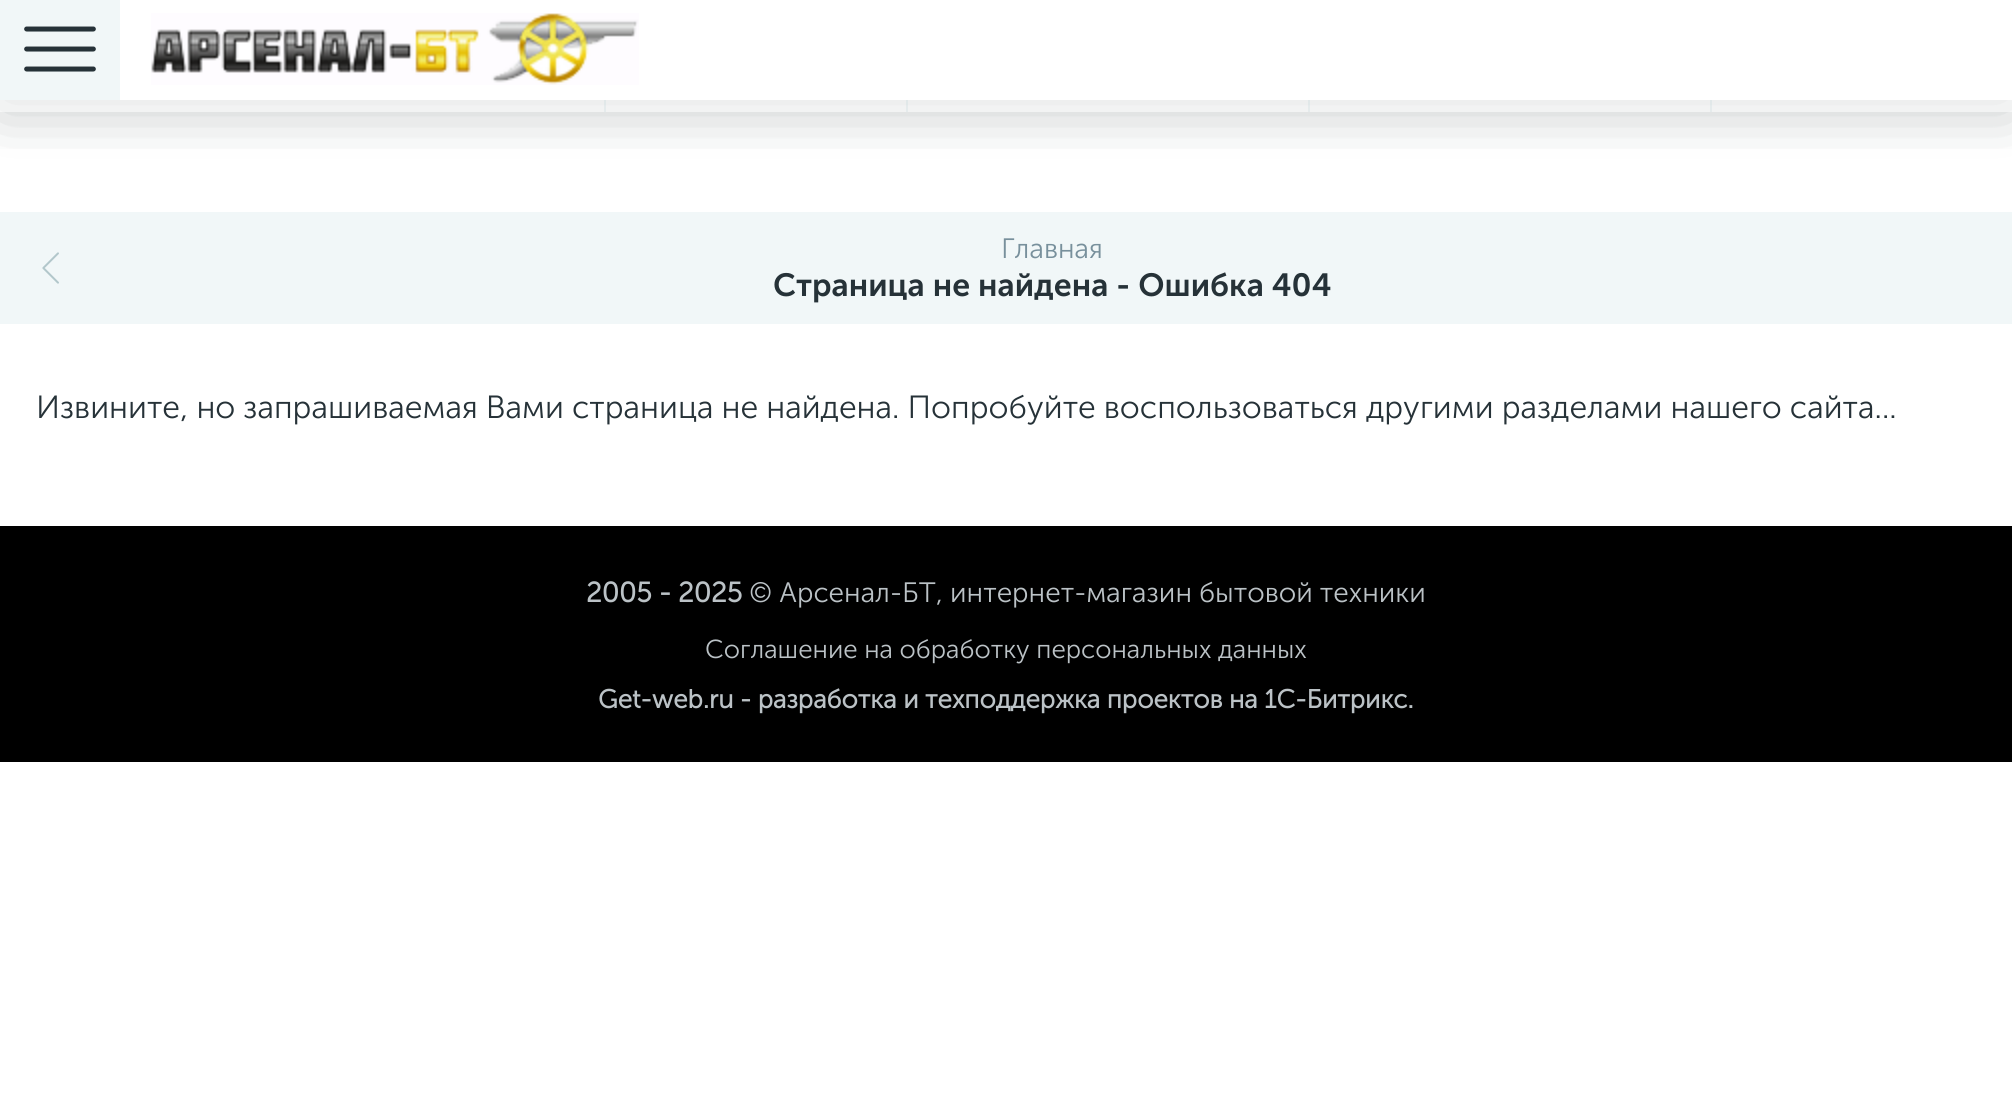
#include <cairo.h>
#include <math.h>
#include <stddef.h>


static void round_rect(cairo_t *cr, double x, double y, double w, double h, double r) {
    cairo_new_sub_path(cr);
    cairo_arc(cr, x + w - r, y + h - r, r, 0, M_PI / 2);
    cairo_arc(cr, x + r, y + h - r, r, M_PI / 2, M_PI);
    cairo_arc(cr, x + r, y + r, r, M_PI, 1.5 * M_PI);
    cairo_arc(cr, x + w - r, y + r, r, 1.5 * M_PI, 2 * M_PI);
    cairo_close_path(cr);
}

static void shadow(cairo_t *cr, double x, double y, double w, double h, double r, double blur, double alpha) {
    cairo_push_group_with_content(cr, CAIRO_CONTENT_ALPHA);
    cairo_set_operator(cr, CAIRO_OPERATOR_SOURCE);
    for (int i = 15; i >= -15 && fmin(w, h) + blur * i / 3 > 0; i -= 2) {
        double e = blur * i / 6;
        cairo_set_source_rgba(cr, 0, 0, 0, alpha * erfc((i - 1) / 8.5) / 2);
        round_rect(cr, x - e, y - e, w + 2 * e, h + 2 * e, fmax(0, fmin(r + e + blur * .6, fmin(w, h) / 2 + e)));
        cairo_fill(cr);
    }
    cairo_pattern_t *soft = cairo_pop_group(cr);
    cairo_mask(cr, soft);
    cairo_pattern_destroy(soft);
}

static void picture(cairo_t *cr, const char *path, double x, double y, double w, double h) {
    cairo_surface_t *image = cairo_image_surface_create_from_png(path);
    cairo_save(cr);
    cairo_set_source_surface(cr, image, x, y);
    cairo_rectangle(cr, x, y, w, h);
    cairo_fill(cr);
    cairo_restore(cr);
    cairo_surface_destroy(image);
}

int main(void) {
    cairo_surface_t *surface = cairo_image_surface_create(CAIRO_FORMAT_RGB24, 2012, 1100);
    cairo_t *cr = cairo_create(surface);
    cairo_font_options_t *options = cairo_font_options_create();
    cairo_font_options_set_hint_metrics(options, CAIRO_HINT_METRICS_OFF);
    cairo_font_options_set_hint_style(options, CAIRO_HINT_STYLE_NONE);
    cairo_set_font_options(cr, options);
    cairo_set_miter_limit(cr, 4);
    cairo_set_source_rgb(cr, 1, 1, 1);
    cairo_paint(cr);
    cairo_save(cr);
    cairo_rectangle(cr, 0, 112, 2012, 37);
    cairo_clip(cr);
    cairo_set_source_rgb(cr, 0.149, 0.196, 0.22);
    shadow(cr, 0, 0, 2012, 112, 0, 32, 0.16);
    cairo_restore(cr);
    cairo_set_source_rgb(cr, 0.945, 0.965, 0.969);
    cairo_rectangle(cr, 604, 100, 2, 12);
    cairo_fill(cr);
    cairo_rectangle(cr, 906, 100, 2, 12);
    cairo_fill(cr);
    cairo_rectangle(cr, 1308, 100, 2, 12);
    cairo_fill(cr);
    cairo_rectangle(cr, 1710, 100, 2, 12);
    cairo_fill(cr);
    cairo_set_source_rgb(cr, 0.149, 0.196, 0.22);
    shadow(cr, 0, 0, 2012, 100, 0, 32, 0.16);
    cairo_set_source_rgb(cr, 1, 1, 1);
    cairo_rectangle(cr, 120, 0, 1892, 100);
    cairo_fill(cr);
    cairo_set_source_rgb(cr, 0.945, 0.965, 0.969);
    cairo_rectangle(cr, 0, 0, 120, 100);
    cairo_fill(cr);
    picture(cr, "img1.png", 24, 26, 72, 46);
    picture(cr, "img2.png", 151, 13, 488, 72);
    cairo_rectangle(cr, 0, 212, 2012, 112);
    cairo_fill(cr);
    picture(cr, "img3.png", 42, 252, 17, 32);
    cairo_select_font_face(cr, "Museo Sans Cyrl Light", CAIRO_FONT_SLANT_NORMAL, CAIRO_FONT_WEIGHT_NORMAL);
    cairo_set_font_size(cr, 28);
    cairo_set_source_rgb(cr, 0.471, 0.565, 0.612);
    cairo_move_to(cr, 1001, 258);
    cairo_show_text(cr, "Главная");
    cairo_select_font_face(cr, "Museo Sans Cyrl SemiBold", CAIRO_FONT_SLANT_NORMAL, CAIRO_FONT_WEIGHT_NORMAL);
    cairo_set_font_size(cr, 32);
    cairo_set_source_rgb(cr, 0.149, 0.196, 0.22);
    cairo_move_to(cr, 773, 296);
    cairo_show_text(cr, "Страница не найдена - Ошибка 404");
    cairo_select_font_face(cr, "Museo Sans Cyrl Light", CAIRO_FONT_SLANT_NORMAL, CAIRO_FONT_WEIGHT_NORMAL);
    cairo_move_to(cr, 36, 418);
    cairo_show_text(cr, "Извините, но запрашиваемая Вами страница не найдена. Попробуйте воспользоваться другими разделами нашего сайта...");
    cairo_set_source_rgb(cr, 0, 0, 0);
    cairo_rectangle(cr, 0, 526, 2012, 236);
    cairo_fill(cr);
    cairo_select_font_face(cr, "Museo Sans Cyrl", CAIRO_FONT_SLANT_NORMAL, CAIRO_FONT_WEIGHT_BOLD);
    cairo_set_font_size(cr, 28);
    cairo_set_source_rgb(cr, 0.733, 0.761, 0.776);
    cairo_move_to(cr, 586, 602);
    cairo_show_text(cr, "2005 - 2025");
    cairo_select_font_face(cr, "Museo Sans Cyrl Light", CAIRO_FONT_SLANT_NORMAL, CAIRO_FONT_WEIGHT_NORMAL);
    cairo_move_to(cr, 749, 602);
    cairo_show_text(cr, "© Арсенал-БТ, интернет-магазин бытовой техники");
    cairo_set_font_size(cr, 26);
    cairo_move_to(cr, 705, 658);
    cairo_show_text(cr, "Соглашение на обработку персональных данных");
    cairo_select_font_face(cr, "Museo Sans Cyrl", CAIRO_FONT_SLANT_NORMAL, CAIRO_FONT_WEIGHT_BOLD);
    cairo_move_to(cr, 598, 708);
    cairo_show_text(cr, "Get-web.ru - разработка и техподдержка проектов на 1С-Битрикс.");
    cairo_surface_write_to_png(surface, "page.png");
    cairo_font_options_destroy(options);
    cairo_destroy(cr);
    cairo_surface_destroy(surface);
    return 0;
}
